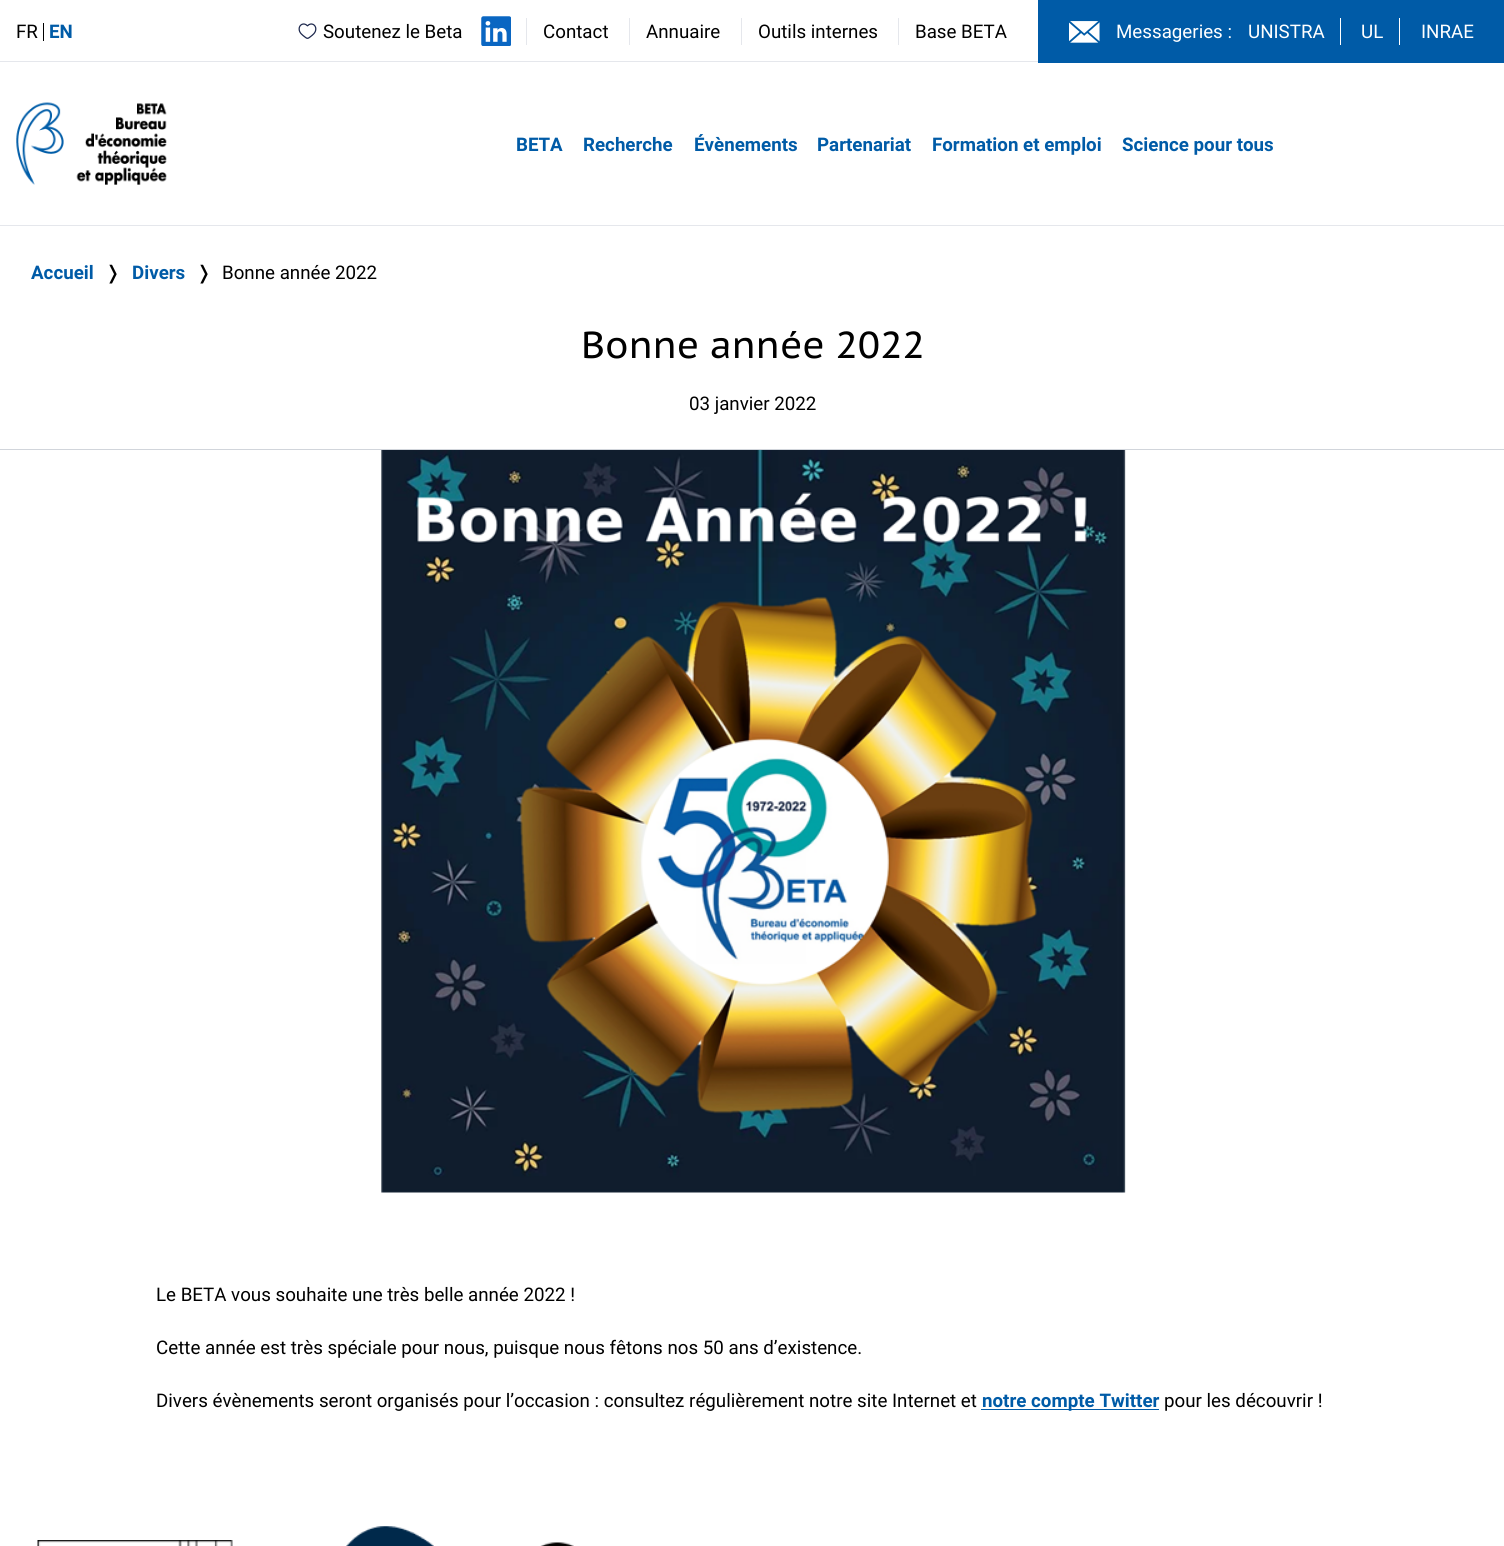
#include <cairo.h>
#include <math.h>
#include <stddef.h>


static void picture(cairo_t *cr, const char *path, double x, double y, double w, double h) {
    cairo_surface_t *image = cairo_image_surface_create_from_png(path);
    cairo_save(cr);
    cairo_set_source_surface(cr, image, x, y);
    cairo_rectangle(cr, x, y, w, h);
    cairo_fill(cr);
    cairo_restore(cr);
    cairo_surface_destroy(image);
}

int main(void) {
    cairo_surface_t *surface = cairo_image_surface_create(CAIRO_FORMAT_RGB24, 1504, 1546);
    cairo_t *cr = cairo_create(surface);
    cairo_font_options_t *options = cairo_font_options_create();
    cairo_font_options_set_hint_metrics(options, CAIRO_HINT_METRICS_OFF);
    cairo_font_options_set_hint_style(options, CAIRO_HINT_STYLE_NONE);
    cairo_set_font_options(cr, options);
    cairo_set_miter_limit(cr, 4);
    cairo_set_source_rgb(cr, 1, 1, 1);
    cairo_paint(cr);
    cairo_set_source_rgb(cr, 0.898, 0.906, 0.922);
    cairo_rectangle(cr, 0, 225, 1504, 1);
    cairo_fill(cr);
    cairo_rectangle(cr, 0, 61, 1038, 1);
    cairo_fill(cr);
    cairo_set_source_rgb(cr, 0, 0, 0);
    cairo_rectangle(cr, 43, 23, 1, 18);
    cairo_fill(cr);
    cairo_select_font_face(cr, "Roboto", CAIRO_FONT_SLANT_NORMAL, CAIRO_FONT_WEIGHT_NORMAL);
    cairo_set_font_size(cr, 18.75);
    cairo_move_to(cr, 16, 38);
    cairo_show_text(cr, "FR");
    cairo_select_font_face(cr, "Roboto", CAIRO_FONT_SLANT_NORMAL, CAIRO_FONT_WEIGHT_BOLD);
    cairo_set_source_rgb(cr, 0, 0.357, 0.655);
    cairo_move_to(cr, 49, 38);
    cairo_show_text(cr, "EN");
    picture(cr, "img1.png", 298, 23, 19, 16);
    cairo_select_font_face(cr, "Roboto", CAIRO_FONT_SLANT_NORMAL, CAIRO_FONT_WEIGHT_NORMAL);
    cairo_set_source_rgb(cr, 0, 0, 0);
    cairo_move_to(cr, 323, 38);
    cairo_show_text(cr, "Soutenez le Beta");
    picture(cr, "img2.png", 481, 16, 30, 30);
    cairo_set_source_rgb(cr, 0.898, 0.906, 0.922);
    cairo_rectangle(cr, 526, 18, 1, 27);
    cairo_fill(cr);
    cairo_set_source_rgb(cr, 0, 0, 0);
    cairo_move_to(cr, 543, 38);
    cairo_show_text(cr, "Contact");
    cairo_set_source_rgb(cr, 0.898, 0.906, 0.922);
    cairo_rectangle(cr, 629, 18, 1, 27);
    cairo_fill(cr);
    cairo_set_source_rgb(cr, 0, 0, 0);
    cairo_move_to(cr, 646, 38);
    cairo_show_text(cr, "Annuaire");
    cairo_set_source_rgb(cr, 0.898, 0.906, 0.922);
    cairo_rectangle(cr, 741, 18, 1, 27);
    cairo_fill(cr);
    cairo_set_source_rgb(cr, 0, 0, 0);
    cairo_move_to(cr, 758, 38);
    cairo_show_text(cr, "Outils internes");
    cairo_set_source_rgb(cr, 0.898, 0.906, 0.922);
    cairo_rectangle(cr, 898, 18, 1, 27);
    cairo_fill(cr);
    cairo_set_source_rgb(cr, 0, 0, 0);
    cairo_move_to(cr, 915, 38);
    cairo_show_text(cr, "Base BETA");
    cairo_set_source_rgb(cr, 0, 0.357, 0.655);
    cairo_rectangle(cr, 1038, 0, 466, 63);
    cairo_fill(cr);
    picture(cr, "img3.png", 1069, 21, 31, 22);
    cairo_set_source_rgb(cr, 1, 1, 1);
    cairo_move_to(cr, 1116, 38);
    cairo_show_text(cr, "Messageries :");
    cairo_rectangle(cr, 1340, 18, 1, 27);
    cairo_fill(cr);
    cairo_move_to(cr, 1248, 38);
    cairo_show_text(cr, "UNISTRA");
    cairo_rectangle(cr, 1399, 18, 1, 27);
    cairo_fill(cr);
    cairo_move_to(cr, 1361, 38);
    cairo_show_text(cr, "UL");
    cairo_move_to(cr, 1421, 38);
    cairo_show_text(cr, "INRAE");
    picture(cr, "img4.png", 16, 102, 151, 83);
    cairo_select_font_face(cr, "Roboto", CAIRO_FONT_SLANT_NORMAL, CAIRO_FONT_WEIGHT_BOLD);
    cairo_set_source_rgb(cr, 0, 0.357, 0.655);
    cairo_move_to(cr, 516, 151);
    cairo_show_text(cr, "BETA");
    cairo_move_to(cr, 583, 151);
    cairo_show_text(cr, "Recherche");
    cairo_move_to(cr, 694, 151);
    cairo_show_text(cr, "Évènements");
    cairo_move_to(cr, 817, 151);
    cairo_show_text(cr, "Partenariat");
    cairo_move_to(cr, 932, 151);
    cairo_show_text(cr, "Formation et emploi");
    cairo_move_to(cr, 1122, 151);
    cairo_show_text(cr, "Science pour tous");
    cairo_move_to(cr, 31, 279);
    cairo_show_text(cr, "Accueil");
    cairo_select_font_face(cr, "DejaVu Sans", CAIRO_FONT_SLANT_NORMAL, CAIRO_FONT_WEIGHT_NORMAL);
    cairo_set_source_rgb(cr, 0, 0, 0);
    cairo_move_to(cr, 105, 279);
    cairo_show_text(cr, "❭");
    cairo_select_font_face(cr, "Roboto", CAIRO_FONT_SLANT_NORMAL, CAIRO_FONT_WEIGHT_BOLD);
    cairo_set_source_rgb(cr, 0, 0.357, 0.655);
    cairo_move_to(cr, 132, 279);
    cairo_show_text(cr, "Divers");
    cairo_select_font_face(cr, "DejaVu Sans", CAIRO_FONT_SLANT_NORMAL, CAIRO_FONT_WEIGHT_NORMAL);
    cairo_set_source_rgb(cr, 0, 0, 0);
    cairo_move_to(cr, 196, 279);
    cairo_show_text(cr, "❭");
    cairo_select_font_face(cr, "Roboto", CAIRO_FONT_SLANT_NORMAL, CAIRO_FONT_WEIGHT_NORMAL);
    cairo_move_to(cr, 222, 279);
    cairo_show_text(cr, "Bonne année 2022");
    cairo_set_source_rgb(cr, 0.82, 0.835, 0.859);
    cairo_rectangle(cr, 0, 449, 1504, 1);
    cairo_fill(cr);
    cairo_select_font_face(cr, "PT Sans Caption", CAIRO_FONT_SLANT_NORMAL, CAIRO_FONT_WEIGHT_NORMAL);
    cairo_set_font_size(cr, 37.5);
    cairo_set_source_rgb(cr, 0, 0, 0);
    cairo_move_to(cr, 581, 358);
    cairo_show_text(cr, "Bonne année 2022");
    cairo_select_font_face(cr, "Roboto", CAIRO_FONT_SLANT_NORMAL, CAIRO_FONT_WEIGHT_NORMAL);
    cairo_set_font_size(cr, 18.75);
    cairo_move_to(cr, 689, 410);
    cairo_show_text(cr, "03 janvier 2022");
    picture(cr, "img5.png", 381, 450, 745, 743);
    cairo_move_to(cr, 156, 1301);
    cairo_show_text(cr, "Le BETA vous souhaite une très belle année 2022 !");
    cairo_move_to(cr, 156, 1354);
    cairo_show_text(cr, "Cette année est très spéciale pour nous, puisque nous fêtons nos 50 ans d’existence.");
    cairo_move_to(cr, 156, 1407);
    cairo_show_text(cr, "Divers évènements seront organisés pour l’occasion : consultez régulièrement notre site Internet et");
    cairo_set_source_rgb(cr, 0, 0.357, 0.655);
    cairo_rectangle(cr, 981, 1409, 178, 1);
    cairo_fill(cr);
    cairo_select_font_face(cr, "Roboto", CAIRO_FONT_SLANT_NORMAL, CAIRO_FONT_WEIGHT_BOLD);
    cairo_move_to(cr, 982, 1407);
    cairo_show_text(cr, "notre compte Twitter");
    cairo_select_font_face(cr, "Roboto", CAIRO_FONT_SLANT_NORMAL, CAIRO_FONT_WEIGHT_NORMAL);
    cairo_set_source_rgb(cr, 0, 0, 0);
    cairo_move_to(cr, 1164, 1407);
    cairo_show_text(cr, "pour les découvrir !");
    picture(cr, "img6.png", 37, 1540, 196, 6);
    picture(cr, "img7.png", 346, 1526, 88, 20);
    picture(cr, "img8.png", 540, 1542, 34, 4);
    cairo_surface_write_to_png(surface, "page.png");
    cairo_font_options_destroy(options);
    cairo_destroy(cr);
    cairo_surface_destroy(surface);
    return 0;
}
